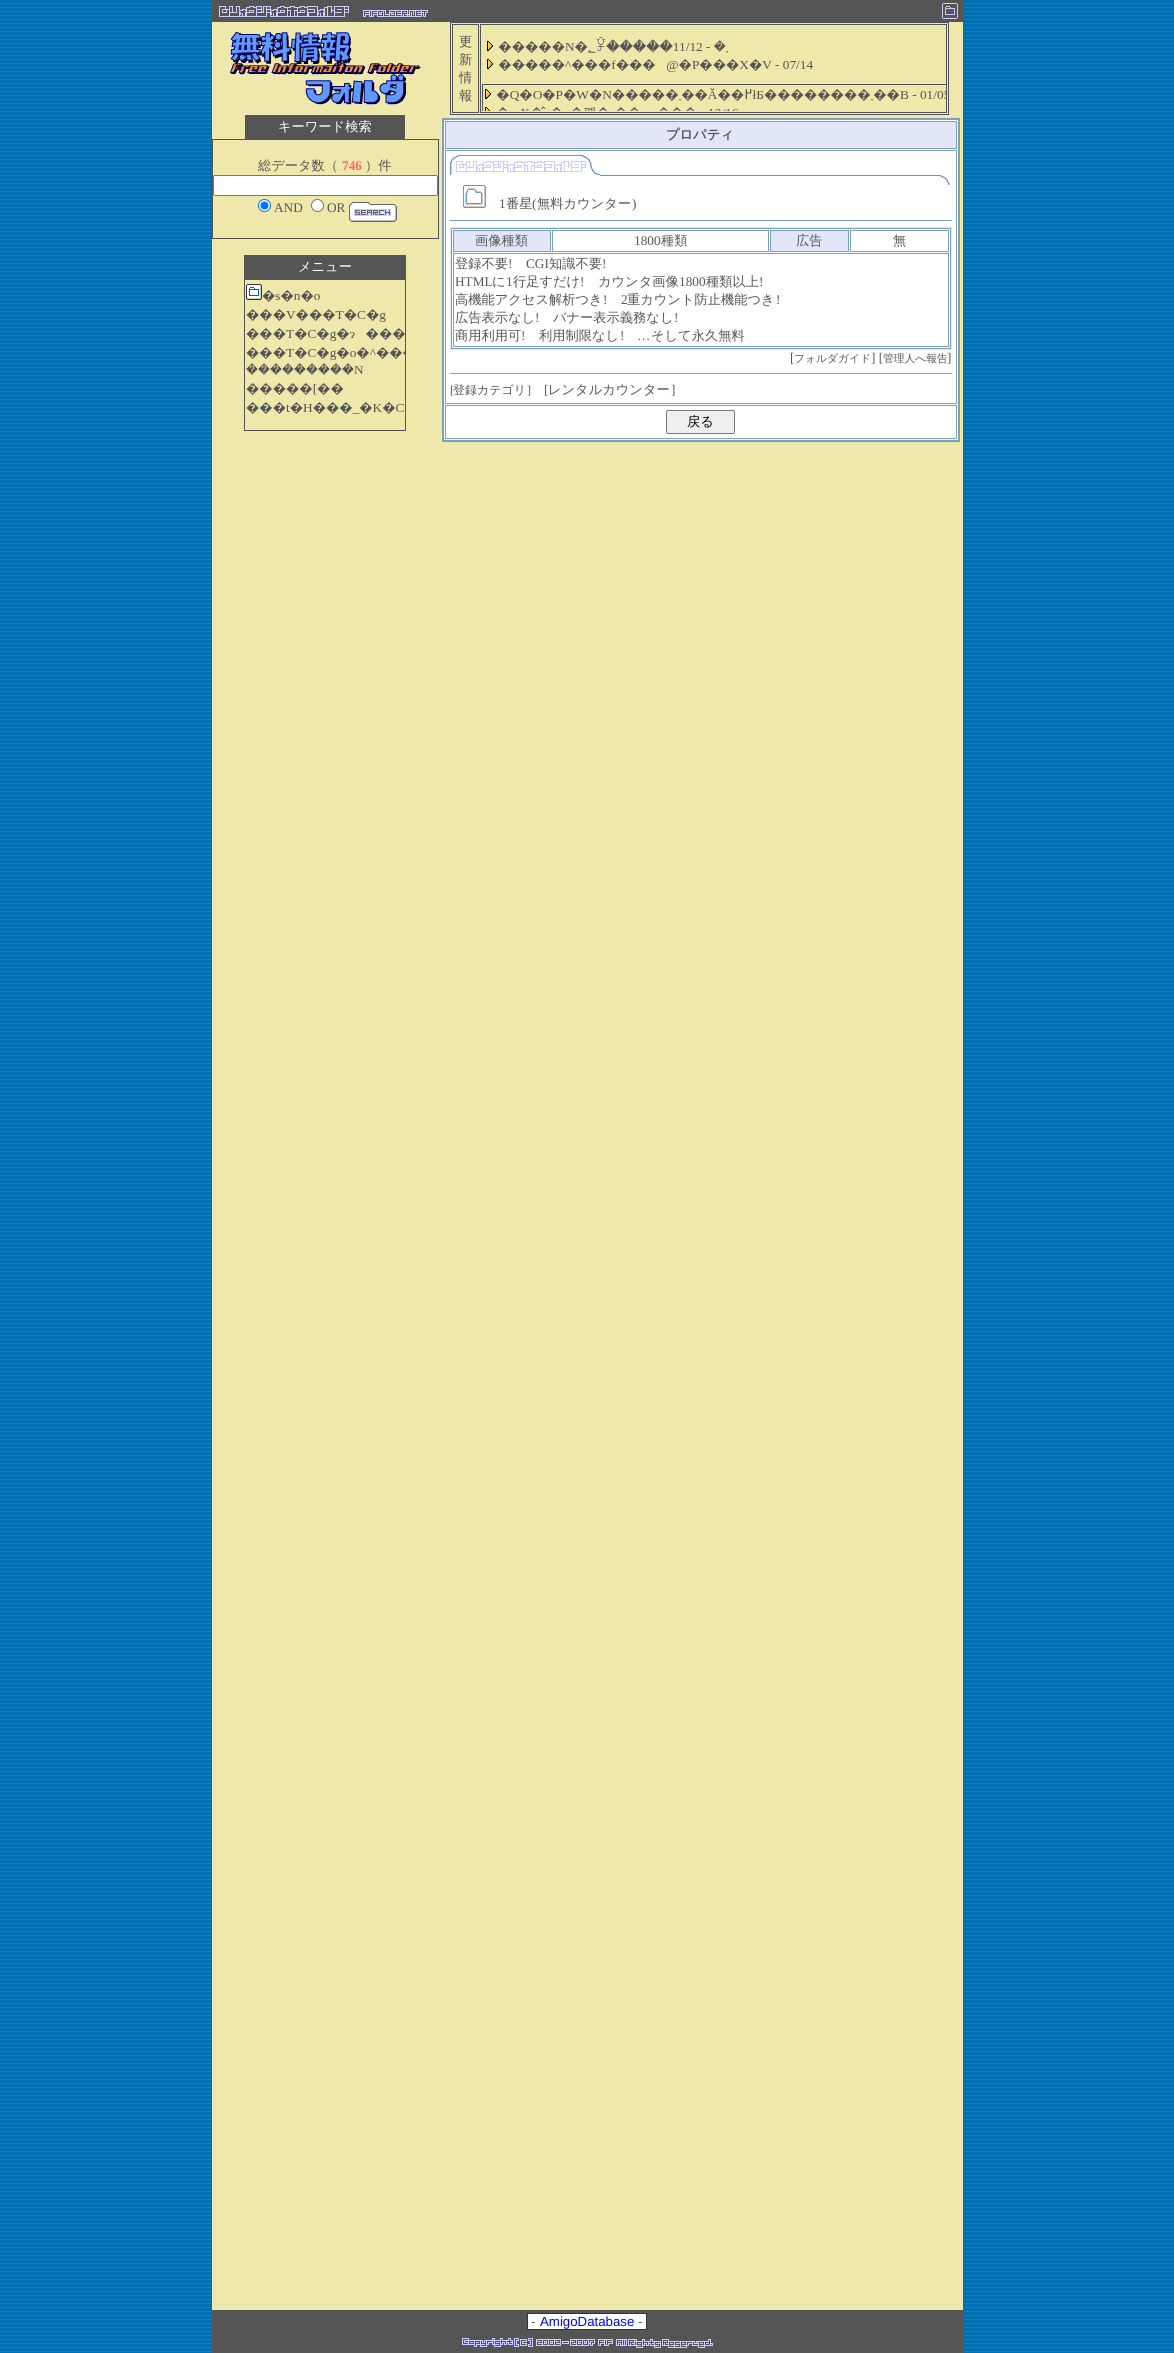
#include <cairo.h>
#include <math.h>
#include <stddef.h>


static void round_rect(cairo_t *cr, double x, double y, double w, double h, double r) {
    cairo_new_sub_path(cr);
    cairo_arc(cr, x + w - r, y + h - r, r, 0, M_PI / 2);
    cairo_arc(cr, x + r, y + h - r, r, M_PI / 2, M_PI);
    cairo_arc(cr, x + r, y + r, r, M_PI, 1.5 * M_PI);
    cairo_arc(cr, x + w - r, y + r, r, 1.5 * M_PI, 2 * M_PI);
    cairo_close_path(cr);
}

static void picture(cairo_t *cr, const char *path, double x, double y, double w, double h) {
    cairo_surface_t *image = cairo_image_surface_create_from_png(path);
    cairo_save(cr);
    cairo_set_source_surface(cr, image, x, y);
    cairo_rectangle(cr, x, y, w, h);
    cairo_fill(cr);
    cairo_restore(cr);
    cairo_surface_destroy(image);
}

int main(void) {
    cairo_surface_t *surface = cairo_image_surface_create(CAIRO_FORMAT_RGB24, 1174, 2353);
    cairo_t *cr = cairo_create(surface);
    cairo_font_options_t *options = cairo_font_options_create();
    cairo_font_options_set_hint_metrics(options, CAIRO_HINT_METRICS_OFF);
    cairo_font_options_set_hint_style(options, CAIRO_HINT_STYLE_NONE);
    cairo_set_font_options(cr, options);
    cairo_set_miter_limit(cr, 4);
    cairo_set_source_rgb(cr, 1, 1, 1);
    cairo_paint(cr);
    picture(cr, "img1.png", 0, 0, 1174, 2353);
    cairo_set_source_rgb(cr, 0.333, 0.333, 0.333);
    cairo_rectangle(cr, 211, 0, 753, 2353);
    cairo_fill(cr);
    picture(cr, "img2.png", 219, 6, 209, 11);
    picture(cr, "img3.png", 942, 3, 16, 16);
    cairo_set_source_rgb(cr, 0.933, 0.91, 0.667);
    cairo_rectangle(cr, 212, 22, 751, 2288);
    cairo_fill(cr);
    picture(cr, "img4.png", 230, 32, 191, 73);
    cairo_rectangle(cr, 450.5, 22.5, 498, 92);
    cairo_set_source_rgb(cr, 0.333, 0.333, 0.333);
    cairo_set_line_width(cr, 1);
    cairo_stroke(cr);
    cairo_rectangle(cr, 452.5, 24.5, 26, 88);
    cairo_stroke(cr);
    cairo_select_font_face(cr, "WenQuanYi Zen Hei Medium", CAIRO_FONT_SLANT_NORMAL, CAIRO_FONT_WEIGHT_NORMAL);
    cairo_set_font_size(cr, 13.25);
    cairo_move_to(cr, 459, 46);
    cairo_show_text(cr, "更");
    cairo_move_to(cr, 459, 64);
    cairo_show_text(cr, "新");
    cairo_move_to(cr, 459, 82);
    cairo_show_text(cr, "情");
    cairo_move_to(cr, 459, 100);
    cairo_show_text(cr, "報");
    cairo_rectangle(cr, 480.5, 24.5, 466, 88);
    cairo_stroke(cr);
    picture(cr, "img5.png", 487, 37, 326, 35);
    picture(cr, "img6.png", 482, 84, 464, 27);
    cairo_rectangle(cr, 245, 115, 160, 24);
    cairo_fill(cr);
    cairo_set_source_rgb(cr, 1, 1, 1);
    cairo_move_to(cr, 278, 131);
    cairo_show_text(cr, "キーワード検索");
    cairo_set_source_rgb(cr, 0.333, 0.333, 0.333);
    cairo_rectangle(cr, 212, 139, 227, 100);
    cairo_fill(cr);
    cairo_set_source_rgb(cr, 0.933, 0.91, 0.667);
    cairo_rectangle(cr, 213, 140, 225, 98);
    cairo_fill(cr);
    cairo_set_source_rgb(cr, 0.333, 0.333, 0.333);
    cairo_move_to(cr, 258, 170);
    cairo_show_text(cr, "総データ数（");
    cairo_select_font_face(cr, "Liberation Serif", CAIRO_FONT_SLANT_NORMAL, CAIRO_FONT_WEIGHT_BOLD);
    cairo_set_source_rgb(cr, 1, 0.4, 0.4);
    cairo_move_to(cr, 342, 170);
    cairo_show_text(cr, "746");
    cairo_select_font_face(cr, "WenQuanYi Zen Hei Medium", CAIRO_FONT_SLANT_NORMAL, CAIRO_FONT_WEIGHT_NORMAL);
    cairo_set_source_rgb(cr, 0.333, 0.333, 0.333);
    cairo_move_to(cr, 365, 170);
    cairo_show_text(cr, "）件");
    cairo_set_source_rgb(cr, 1, 1, 1);
    round_rect(cr, 213.5, 175.5, 224, 20, 1.5);
    cairo_fill_preserve(cr);
    cairo_set_source_rgb(cr, 0.463, 0.463, 0.463);
    cairo_stroke(cr);
    cairo_set_source_rgb(cr, 1, 1, 1);
    cairo_arc(cr, 264.5, 205.5, 6, 0, 2 * M_PI);
    cairo_fill_preserve(cr);
    cairo_set_source_rgb(cr, 0, 0.459, 1);
    cairo_stroke(cr);
    cairo_arc(cr, 264.5, 205.5, 4, 0, 2 * M_PI);
    cairo_fill(cr);
    cairo_select_font_face(cr, "Liberation Serif", CAIRO_FONT_SLANT_NORMAL, CAIRO_FONT_WEIGHT_NORMAL);
    cairo_set_source_rgb(cr, 0.333, 0.333, 0.333);
    cairo_move_to(cr, 274, 212);
    cairo_show_text(cr, "AND");
    cairo_set_source_rgb(cr, 1, 1, 1);
    cairo_new_path(cr);
    cairo_arc(cr, 317.5, 205.5, 6, 0, 2 * M_PI);
    cairo_fill_preserve(cr);
    cairo_set_source_rgb(cr, 0.463, 0.463, 0.463);
    cairo_stroke(cr);
    cairo_set_source_rgb(cr, 0.333, 0.333, 0.333);
    cairo_move_to(cr, 327, 212);
    cairo_show_text(cr, "OR");
    picture(cr, "img7.png", 349, 202, 48, 20);
    cairo_rectangle(cr, 244, 255, 162, 176);
    cairo_fill(cr);
    cairo_select_font_face(cr, "WenQuanYi Zen Hei Medium", CAIRO_FONT_SLANT_NORMAL, CAIRO_FONT_WEIGHT_NORMAL);
    cairo_set_source_rgb(cr, 1, 1, 1);
    cairo_move_to(cr, 298, 271);
    cairo_show_text(cr, "メニュー");
    cairo_set_source_rgb(cr, 0.933, 0.91, 0.667);
    cairo_rectangle(cr, 245, 280, 160, 150);
    cairo_fill(cr);
    picture(cr, "img8.png", 246, 284, 159, 130);
    cairo_set_source_rgb(cr, 0.486, 0.627, 0.753);
    cairo_rectangle(cr, 442, 118, 518, 324);
    cairo_fill(cr);
    cairo_set_source_rgb(cr, 1, 1, 1);
    cairo_rectangle(cr, 444, 120, 514, 320);
    cairo_fill(cr);
    cairo_set_source_rgb(cr, 0.882, 0.906, 0.969);
    cairo_rectangle(cr, 445.5, 121.5, 511, 27);
    cairo_fill_preserve(cr);
    cairo_set_source_rgb(cr, 0.486, 0.627, 0.753);
    cairo_stroke(cr);
    cairo_select_font_face(cr, "WenQuanYi Zen Hei", CAIRO_FONT_SLANT_NORMAL, CAIRO_FONT_WEIGHT_BOLD);
    cairo_set_source_rgb(cr, 0.333, 0.333, 0.333);
    cairo_move_to(cr, 666, 139);
    cairo_show_text(cr, "プロパティ");
    cairo_rectangle(cr, 445.5, 150.5, 511, 253);
    cairo_set_source_rgb(cr, 0.486, 0.627, 0.753);
    cairo_stroke(cr);
    picture(cr, "img9.png", 450, 155, 150, 20);
    picture(cr, "img10.png", 600, 175, 350, 10);
    picture(cr, "img11.png", 463, 185, 23, 23);
    cairo_select_font_face(cr, "Liberation Serif", CAIRO_FONT_SLANT_NORMAL, CAIRO_FONT_WEIGHT_NORMAL);
    cairo_set_source_rgb(cr, 0.333, 0.333, 0.333);
    cairo_move_to(cr, 499, 208);
    cairo_show_text(cr, "1");
    cairo_select_font_face(cr, "WenQuanYi Zen Hei Medium", CAIRO_FONT_SLANT_NORMAL, CAIRO_FONT_WEIGHT_NORMAL);
    cairo_move_to(cr, 506, 208);
    cairo_show_text(cr, "番星");
    cairo_select_font_face(cr, "Liberation Serif", CAIRO_FONT_SLANT_NORMAL, CAIRO_FONT_WEIGHT_NORMAL);
    cairo_move_to(cr, 532, 208);
    cairo_show_text(cr, "(");
    cairo_select_font_face(cr, "WenQuanYi Zen Hei Medium", CAIRO_FONT_SLANT_NORMAL, CAIRO_FONT_WEIGHT_NORMAL);
    cairo_move_to(cr, 537, 208);
    cairo_show_text(cr, "無料カウンター");
    cairo_select_font_face(cr, "Liberation Serif", CAIRO_FONT_SLANT_NORMAL, CAIRO_FONT_WEIGHT_NORMAL);
    cairo_move_to(cr, 632, 208);
    cairo_show_text(cr, ")");
    cairo_set_source_rgb(cr, 0.486, 0.627, 0.753);
    cairo_rectangle(cr, 450, 220, 502, 1);
    cairo_fill(cr);
    cairo_set_source_rgb(cr, 0.882, 0.906, 0.969);
    cairo_rectangle(cr, 450, 227, 502, 123);
    cairo_fill(cr);
    cairo_set_source_rgb(cr, 1, 1, 1);
    cairo_rectangle(cr, 451.5, 228.5, 499, 120);
    cairo_fill_preserve(cr);
    cairo_set_source_rgb(cr, 0.486, 0.627, 0.753);
    cairo_stroke(cr);
    cairo_set_source_rgb(cr, 0.882, 0.906, 0.969);
    cairo_rectangle(cr, 453.5, 230.5, 97, 21);
    cairo_fill_preserve(cr);
    cairo_set_source_rgb(cr, 0.486, 0.627, 0.753);
    cairo_stroke(cr);
    cairo_select_font_face(cr, "WenQuanYi Zen Hei Medium", CAIRO_FONT_SLANT_NORMAL, CAIRO_FONT_WEIGHT_NORMAL);
    cairo_set_source_rgb(cr, 0.333, 0.333, 0.333);
    cairo_move_to(cr, 475, 245);
    cairo_show_text(cr, "画像種類");
    cairo_rectangle(cr, 552.5, 230.5, 216, 21);
    cairo_set_source_rgb(cr, 0.486, 0.627, 0.753);
    cairo_stroke(cr);
    cairo_select_font_face(cr, "Liberation Serif", CAIRO_FONT_SLANT_NORMAL, CAIRO_FONT_WEIGHT_NORMAL);
    cairo_set_source_rgb(cr, 0.333, 0.333, 0.333);
    cairo_move_to(cr, 634, 245);
    cairo_show_text(cr, "1800");
    cairo_select_font_face(cr, "WenQuanYi Zen Hei Medium", CAIRO_FONT_SLANT_NORMAL, CAIRO_FONT_WEIGHT_NORMAL);
    cairo_move_to(cr, 661, 245);
    cairo_show_text(cr, "種類");
    cairo_set_source_rgb(cr, 0.882, 0.906, 0.969);
    cairo_rectangle(cr, 770.5, 230.5, 78, 21);
    cairo_fill_preserve(cr);
    cairo_set_source_rgb(cr, 0.486, 0.627, 0.753);
    cairo_stroke(cr);
    cairo_set_source_rgb(cr, 0.333, 0.333, 0.333);
    cairo_move_to(cr, 796, 245);
    cairo_show_text(cr, "広告");
    cairo_rectangle(cr, 850.5, 230.5, 98, 21);
    cairo_set_source_rgb(cr, 0.486, 0.627, 0.753);
    cairo_stroke(cr);
    cairo_set_source_rgb(cr, 0.333, 0.333, 0.333);
    cairo_move_to(cr, 893, 245);
    cairo_show_text(cr, "無");
    cairo_rectangle(cr, 453.5, 253.5, 495, 93);
    cairo_set_source_rgb(cr, 0.486, 0.627, 0.753);
    cairo_stroke(cr);
    cairo_set_source_rgb(cr, 0.333, 0.333, 0.333);
    cairo_move_to(cr, 455, 268);
    cairo_show_text(cr, "登録不要");
    cairo_select_font_face(cr, "Liberation Serif", CAIRO_FONT_SLANT_NORMAL, CAIRO_FONT_WEIGHT_NORMAL);
    cairo_move_to(cr, 508, 268);
    cairo_show_text(cr, "!");
    cairo_move_to(cr, 526, 268);
    cairo_show_text(cr, "CGI");
    cairo_select_font_face(cr, "WenQuanYi Zen Hei Medium", CAIRO_FONT_SLANT_NORMAL, CAIRO_FONT_WEIGHT_NORMAL);
    cairo_move_to(cr, 549, 268);
    cairo_show_text(cr, "知識不要");
    cairo_select_font_face(cr, "Liberation Serif", CAIRO_FONT_SLANT_NORMAL, CAIRO_FONT_WEIGHT_NORMAL);
    cairo_move_to(cr, 602, 268);
    cairo_show_text(cr, "!");
    cairo_move_to(cr, 455, 286);
    cairo_show_text(cr, "HTML");
    cairo_select_font_face(cr, "WenQuanYi Zen Hei Medium", CAIRO_FONT_SLANT_NORMAL, CAIRO_FONT_WEIGHT_NORMAL);
    cairo_move_to(cr, 492, 286);
    cairo_show_text(cr, "に");
    cairo_select_font_face(cr, "Liberation Serif", CAIRO_FONT_SLANT_NORMAL, CAIRO_FONT_WEIGHT_NORMAL);
    cairo_move_to(cr, 506, 286);
    cairo_show_text(cr, "1");
    cairo_select_font_face(cr, "WenQuanYi Zen Hei Medium", CAIRO_FONT_SLANT_NORMAL, CAIRO_FONT_WEIGHT_NORMAL);
    cairo_move_to(cr, 513, 286);
    cairo_show_text(cr, "行足すだけ");
    cairo_select_font_face(cr, "Liberation Serif", CAIRO_FONT_SLANT_NORMAL, CAIRO_FONT_WEIGHT_NORMAL);
    cairo_move_to(cr, 580, 286);
    cairo_show_text(cr, "!");
    cairo_select_font_face(cr, "WenQuanYi Zen Hei Medium", CAIRO_FONT_SLANT_NORMAL, CAIRO_FONT_WEIGHT_NORMAL);
    cairo_move_to(cr, 598, 286);
    cairo_show_text(cr, "カウンタ画像");
    cairo_select_font_face(cr, "Liberation Serif", CAIRO_FONT_SLANT_NORMAL, CAIRO_FONT_WEIGHT_NORMAL);
    cairo_move_to(cr, 679, 286);
    cairo_show_text(cr, "1800");
    cairo_select_font_face(cr, "WenQuanYi Zen Hei Medium", CAIRO_FONT_SLANT_NORMAL, CAIRO_FONT_WEIGHT_NORMAL);
    cairo_move_to(cr, 706, 286);
    cairo_show_text(cr, "種類以上");
    cairo_select_font_face(cr, "Liberation Serif", CAIRO_FONT_SLANT_NORMAL, CAIRO_FONT_WEIGHT_NORMAL);
    cairo_move_to(cr, 759, 286);
    cairo_show_text(cr, "!");
    cairo_select_font_face(cr, "WenQuanYi Zen Hei Medium", CAIRO_FONT_SLANT_NORMAL, CAIRO_FONT_WEIGHT_NORMAL);
    cairo_move_to(cr, 455, 304);
    cairo_show_text(cr, "高機能アクセス解析つき");
    cairo_select_font_face(cr, "Liberation Serif", CAIRO_FONT_SLANT_NORMAL, CAIRO_FONT_WEIGHT_NORMAL);
    cairo_move_to(cr, 603, 304);
    cairo_show_text(cr, "!");
    cairo_move_to(cr, 621, 304);
    cairo_show_text(cr, "2");
    cairo_select_font_face(cr, "WenQuanYi Zen Hei Medium", CAIRO_FONT_SLANT_NORMAL, CAIRO_FONT_WEIGHT_NORMAL);
    cairo_move_to(cr, 627, 304);
    cairo_show_text(cr, "重カウント防止機能つき");
    cairo_select_font_face(cr, "Liberation Serif", CAIRO_FONT_SLANT_NORMAL, CAIRO_FONT_WEIGHT_NORMAL);
    cairo_move_to(cr, 776, 304);
    cairo_show_text(cr, "!");
    cairo_select_font_face(cr, "WenQuanYi Zen Hei Medium", CAIRO_FONT_SLANT_NORMAL, CAIRO_FONT_WEIGHT_NORMAL);
    cairo_move_to(cr, 455, 322);
    cairo_show_text(cr, "広告表示なし");
    cairo_select_font_face(cr, "Liberation Serif", CAIRO_FONT_SLANT_NORMAL, CAIRO_FONT_WEIGHT_NORMAL);
    cairo_move_to(cr, 535, 322);
    cairo_show_text(cr, "!");
    cairo_select_font_face(cr, "WenQuanYi Zen Hei Medium", CAIRO_FONT_SLANT_NORMAL, CAIRO_FONT_WEIGHT_NORMAL);
    cairo_move_to(cr, 553, 322);
    cairo_show_text(cr, "バナー表示義務なし");
    cairo_select_font_face(cr, "Liberation Serif", CAIRO_FONT_SLANT_NORMAL, CAIRO_FONT_WEIGHT_NORMAL);
    cairo_move_to(cr, 674, 322);
    cairo_show_text(cr, "!");
    cairo_select_font_face(cr, "WenQuanYi Zen Hei Medium", CAIRO_FONT_SLANT_NORMAL, CAIRO_FONT_WEIGHT_NORMAL);
    cairo_move_to(cr, 455, 340);
    cairo_show_text(cr, "商用利用可");
    cairo_select_font_face(cr, "Liberation Serif", CAIRO_FONT_SLANT_NORMAL, CAIRO_FONT_WEIGHT_NORMAL);
    cairo_move_to(cr, 521, 340);
    cairo_show_text(cr, "!");
    cairo_select_font_face(cr, "WenQuanYi Zen Hei Medium", CAIRO_FONT_SLANT_NORMAL, CAIRO_FONT_WEIGHT_NORMAL);
    cairo_move_to(cr, 539, 340);
    cairo_show_text(cr, "利用制限なし");
    cairo_select_font_face(cr, "Liberation Serif", CAIRO_FONT_SLANT_NORMAL, CAIRO_FONT_WEIGHT_NORMAL);
    cairo_move_to(cr, 620, 340);
    cairo_show_text(cr, "!");
    cairo_move_to(cr, 637, 340);
    cairo_show_text(cr, "…");
    cairo_select_font_face(cr, "WenQuanYi Zen Hei Medium", CAIRO_FONT_SLANT_NORMAL, CAIRO_FONT_WEIGHT_NORMAL);
    cairo_move_to(cr, 651, 340);
    cairo_show_text(cr, "そして永久無料");
    cairo_select_font_face(cr, "Liberation Serif", CAIRO_FONT_SLANT_NORMAL, CAIRO_FONT_WEIGHT_NORMAL);
    cairo_move_to(cr, 790, 362);
    cairo_show_text(cr, "[");
    cairo_select_font_face(cr, "WenQuanYi Zen Hei Medium", CAIRO_FONT_SLANT_NORMAL, CAIRO_FONT_WEIGHT_NORMAL);
    cairo_set_font_size(cr, 10.75);
    cairo_move_to(cr, 794, 362);
    cairo_show_text(cr, "フォルダガイド");
    cairo_select_font_face(cr, "Liberation Serif", CAIRO_FONT_SLANT_NORMAL, CAIRO_FONT_WEIGHT_NORMAL);
    cairo_set_font_size(cr, 13.25);
    cairo_move_to(cr, 871, 362);
    cairo_show_text(cr, "] [");
    cairo_select_font_face(cr, "WenQuanYi Zen Hei Medium", CAIRO_FONT_SLANT_NORMAL, CAIRO_FONT_WEIGHT_NORMAL);
    cairo_set_font_size(cr, 10.75);
    cairo_move_to(cr, 883, 362);
    cairo_show_text(cr, "管理人へ報告");
    cairo_select_font_face(cr, "Liberation Serif", CAIRO_FONT_SLANT_NORMAL, CAIRO_FONT_WEIGHT_NORMAL);
    cairo_set_font_size(cr, 13.25);
    cairo_move_to(cr, 947, 362);
    cairo_show_text(cr, "]");
    cairo_set_source_rgb(cr, 0.486, 0.627, 0.753);
    cairo_rectangle(cr, 450, 373, 502, 1);
    cairo_fill(cr);
    cairo_set_font_size(cr, 12);
    cairo_set_source_rgb(cr, 0.333, 0.333, 0.333);
    cairo_move_to(cr, 450, 394);
    cairo_show_text(cr, "[");
    cairo_select_font_face(cr, "WenQuanYi Zen Hei Medium", CAIRO_FONT_SLANT_NORMAL, CAIRO_FONT_WEIGHT_NORMAL);
    cairo_move_to(cr, 453, 394);
    cairo_show_text(cr, "登録カテゴリ");
    cairo_select_font_face(cr, "Liberation Serif", CAIRO_FONT_SLANT_NORMAL, CAIRO_FONT_WEIGHT_NORMAL);
    cairo_move_to(cr, 527, 394);
    cairo_show_text(cr, "]");
    cairo_set_font_size(cr, 13.25);
    cairo_move_to(cr, 544, 394);
    cairo_show_text(cr, "[");
    cairo_select_font_face(cr, "WenQuanYi Zen Hei Medium", CAIRO_FONT_SLANT_NORMAL, CAIRO_FONT_WEIGHT_NORMAL);
    cairo_move_to(cr, 548, 394);
    cairo_show_text(cr, "レンタルカウンター");
    cairo_select_font_face(cr, "Liberation Serif", CAIRO_FONT_SLANT_NORMAL, CAIRO_FONT_WEIGHT_NORMAL);
    cairo_move_to(cr, 671, 394);
    cairo_show_text(cr, "]");
    cairo_rectangle(cr, 445.5, 405.5, 511, 33);
    cairo_set_source_rgb(cr, 0.486, 0.627, 0.753);
    cairo_stroke(cr);
    cairo_set_source_rgb(cr, 0.937, 0.937, 0.937);
    round_rect(cr, 666.5, 410.5, 68, 23, 1.5);
    cairo_fill_preserve(cr);
    cairo_set_source_rgb(cr, 0.463, 0.463, 0.463);
    cairo_stroke(cr);
    cairo_select_font_face(cr, "WenQuanYi Zen Hei Medium", CAIRO_FONT_SLANT_NORMAL, CAIRO_FONT_WEIGHT_NORMAL);
    cairo_set_source_rgb(cr, 0, 0, 0);
    cairo_move_to(cr, 687, 426);
    cairo_show_text(cr, "戻る");
    cairo_set_source_rgb(cr, 0.2, 0.2, 0.2);
    cairo_rectangle(cr, 527, 2313, 120, 17);
    cairo_fill(cr);
    cairo_set_source_rgb(cr, 1, 1, 1);
    cairo_rectangle(cr, 528, 2314, 118, 15);
    cairo_fill(cr);
    cairo_select_font_face(cr, "Liberation Sans", CAIRO_FONT_SLANT_NORMAL, CAIRO_FONT_WEIGHT_NORMAL);
    cairo_set_source_rgb(cr, 0.333, 0.333, 0.333);
    cairo_move_to(cr, 531, 2326);
    cairo_show_text(cr, "-");
    cairo_set_source_rgb(cr, 0, 0, 1);
    cairo_move_to(cr, 540, 2326);
    cairo_show_text(cr, "AmigoDatabase");
    cairo_set_source_rgb(cr, 0.333, 0.333, 0.333);
    cairo_move_to(cr, 638, 2326);
    cairo_show_text(cr, "-");
    picture(cr, "img12.png", 462, 2338, 251, 10);
    cairo_surface_write_to_png(surface, "page.png");
    cairo_font_options_destroy(options);
    cairo_destroy(cr);
    cairo_surface_destroy(surface);
    return 0;
}
